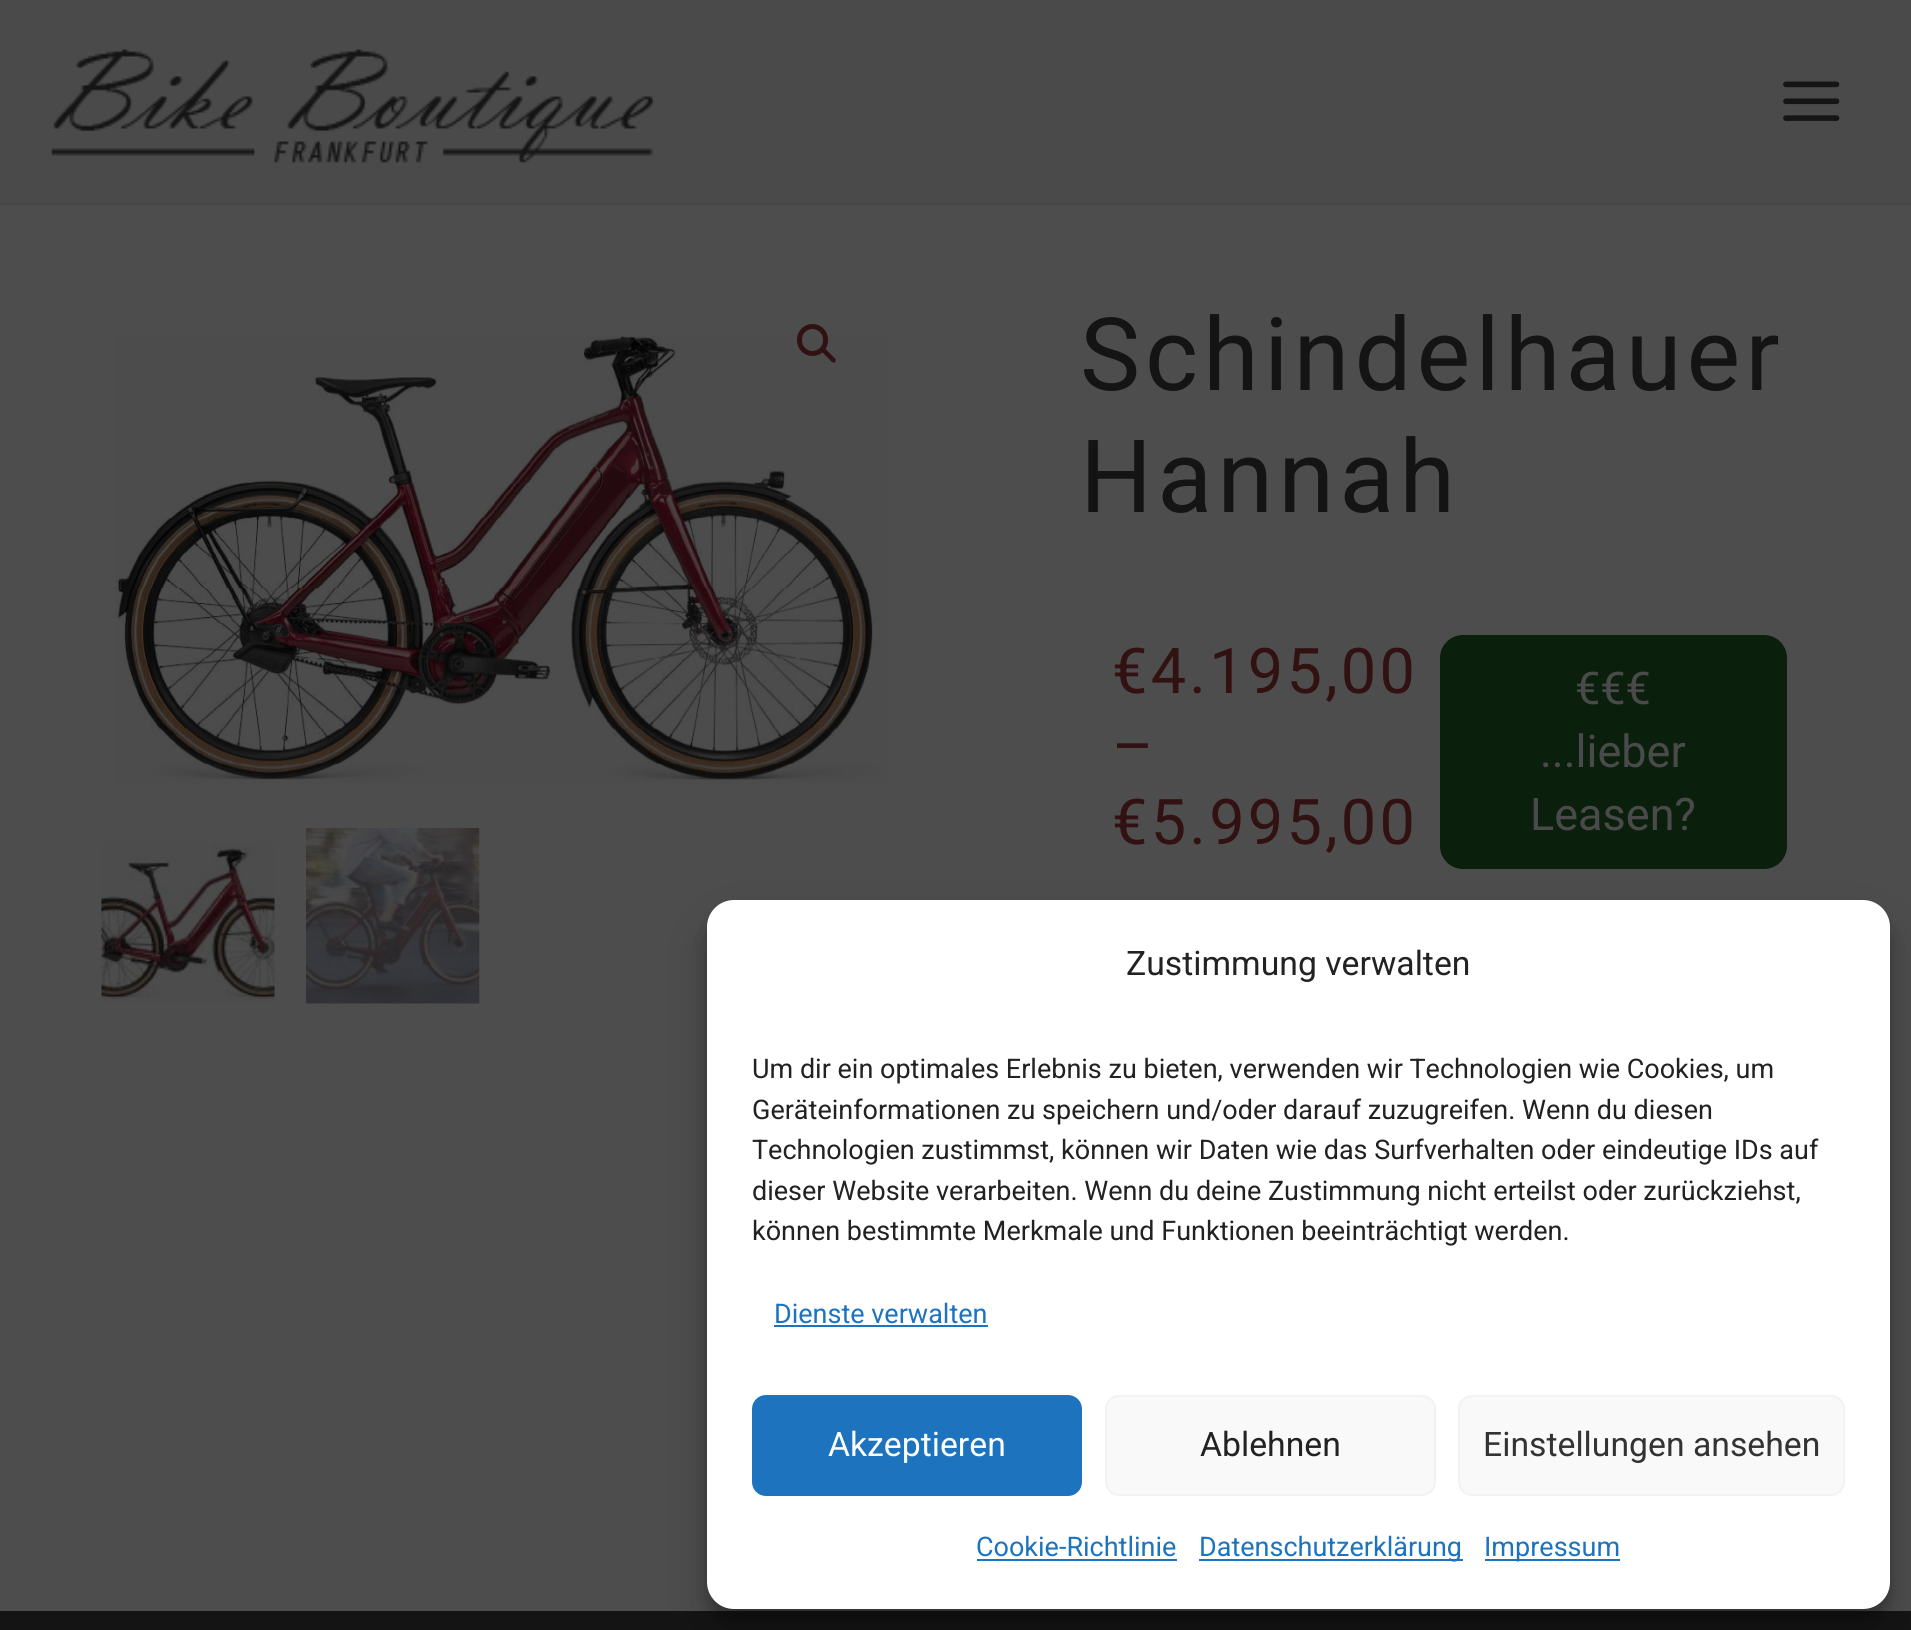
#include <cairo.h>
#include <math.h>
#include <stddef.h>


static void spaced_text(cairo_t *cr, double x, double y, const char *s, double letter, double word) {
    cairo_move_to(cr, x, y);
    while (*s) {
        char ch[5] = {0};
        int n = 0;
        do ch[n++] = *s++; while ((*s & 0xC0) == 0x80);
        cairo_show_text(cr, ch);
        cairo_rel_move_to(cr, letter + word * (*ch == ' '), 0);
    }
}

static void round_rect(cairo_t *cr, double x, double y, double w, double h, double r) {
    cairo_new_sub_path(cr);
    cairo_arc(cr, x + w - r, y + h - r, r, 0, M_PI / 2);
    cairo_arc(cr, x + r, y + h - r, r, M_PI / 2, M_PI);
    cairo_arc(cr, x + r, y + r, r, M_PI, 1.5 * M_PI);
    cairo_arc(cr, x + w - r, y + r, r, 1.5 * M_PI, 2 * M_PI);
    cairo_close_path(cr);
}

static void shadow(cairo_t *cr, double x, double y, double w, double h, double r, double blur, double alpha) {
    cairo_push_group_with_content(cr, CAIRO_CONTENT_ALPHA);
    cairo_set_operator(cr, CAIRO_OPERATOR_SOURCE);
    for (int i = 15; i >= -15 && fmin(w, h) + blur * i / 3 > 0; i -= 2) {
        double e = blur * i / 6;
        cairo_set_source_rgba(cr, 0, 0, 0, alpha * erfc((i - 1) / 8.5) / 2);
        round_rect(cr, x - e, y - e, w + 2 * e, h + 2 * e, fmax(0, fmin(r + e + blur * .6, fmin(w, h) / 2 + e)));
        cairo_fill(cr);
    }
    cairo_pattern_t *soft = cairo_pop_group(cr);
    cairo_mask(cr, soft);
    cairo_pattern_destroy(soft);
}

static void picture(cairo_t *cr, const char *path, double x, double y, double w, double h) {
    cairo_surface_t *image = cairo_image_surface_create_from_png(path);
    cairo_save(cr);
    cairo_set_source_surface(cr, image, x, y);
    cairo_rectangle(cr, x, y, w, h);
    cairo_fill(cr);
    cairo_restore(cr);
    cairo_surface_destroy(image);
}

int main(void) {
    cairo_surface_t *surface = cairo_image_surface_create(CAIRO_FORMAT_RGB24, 1911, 1630);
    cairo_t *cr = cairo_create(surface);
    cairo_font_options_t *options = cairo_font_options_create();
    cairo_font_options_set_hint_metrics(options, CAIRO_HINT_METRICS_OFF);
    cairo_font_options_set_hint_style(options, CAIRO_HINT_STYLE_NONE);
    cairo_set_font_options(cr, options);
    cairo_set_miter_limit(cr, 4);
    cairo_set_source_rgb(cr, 0.302, 0.302, 0.302);
    cairo_paint(cr);
    cairo_set_source_rgb(cr, 0.29, 0.29, 0.29);
    cairo_rectangle(cr, 0, 0, 1911, 203);
    cairo_fill(cr);
    cairo_set_source_rgb(cr, 0.275, 0.275, 0.275);
    cairo_rectangle(cr, 0, 203, 1911, 2);
    cairo_fill(cr);
    picture(cr, "img1.png", 51, 49, 603, 114);
    picture(cr, "img2.png", 1783, 81, 57, 40);
    picture(cr, "img3.png", 115, 335, 774, 450);
    round_rect(cr, 799.5, 326.5, 26, 27, 13);
    cairo_set_source_rgb(cr, 0.192, 0.067, 0.067);
    cairo_set_line_width(cr, 5);
    cairo_stroke(cr);
    cairo_new_path(cr);
    cairo_move_to(cr, 822.5, 349);
    cairo_curve_to(cr, 823.5, 348.5, 824.5, 348.5, 825.5, 349);
    cairo_line_to(cr, 835, 358.5);
    cairo_curve_to(cr, 836, 359.5, 836, 361, 835, 362);
    cairo_curve_to(cr, 834, 363, 833, 363, 832, 362);
    cairo_line_to(cr, 822.5, 352.5);
    cairo_curve_to(cr, 821.5, 351.5, 821.5, 350, 822.5, 349);
    cairo_close_path(cr);
    cairo_fill(cr);
    picture(cr, "img4.png", 101, 842, 174, 161);
    picture(cr, "img5.png", 306, 828, 174, 176);
    cairo_select_font_face(cr, "Roboto", CAIRO_FONT_SLANT_NORMAL, CAIRO_FONT_WEIGHT_NORMAL);
    cairo_set_font_size(cr, 101.25);
    cairo_set_source_rgb(cr, 0.082, 0.082, 0.082);
    spaced_text(cr, 1080, 390, "Schindelhauer", 5, 0);
    spaced_text(cr, 1080, 512, "Hannah", 5, 0);
    cairo_set_font_size(cr, 63);
    cairo_set_source_rgb(cr, 0.192, 0.067, 0.067);
    spaced_text(cr, 1112, 693, "€4.195,00", 3.25, 0);
    spaced_text(cr, 1112, 768, "–", 3.25, 0);
    spaced_text(cr, 1112, 844, "€5.995,00", 3.25, 0);
    cairo_set_source_rgb(cr, 0.043, 0.122, 0.051);
    round_rect(cr, 1440, 635, 347, 234, 23);
    cairo_fill(cr);
    cairo_set_font_size(cr, 45);
    cairo_set_source_rgb(cr, 0.29, 0.29, 0.29);
    cairo_move_to(cr, 1575, 704);
    cairo_show_text(cr, "€€€");
    cairo_move_to(cr, 1540, 767);
    cairo_show_text(cr, "...lieber");
    cairo_move_to(cr, 1530, 830);
    cairo_show_text(cr, "Leasen?");
    cairo_set_source_rgb(cr, 0.082, 0.082, 0.082);
    cairo_rectangle(cr, 0, 1611, 1911, 19);
    cairo_fill(cr);
    cairo_set_source_rgb(cr, 0, 0, 0);
    shadow(cr, 707, 914, 1183, 708, 27, 7, 0.23);
    shadow(cr, 707, 923, 1183, 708, 27, 22.5, 0.19);
    cairo_set_source_rgb(cr, 1, 1, 1);
    round_rect(cr, 707, 900, 1183, 709, 27);
    cairo_fill(cr);
    cairo_set_font_size(cr, 33.75);
    cairo_set_source_rgb(cr, 0.133, 0.133, 0.133);
    cairo_move_to(cr, 1126, 975);
    cairo_show_text(cr, "Zustimmung verwalten");
    cairo_set_font_size(cr, 27);
    cairo_move_to(cr, 752, 1078);
    cairo_show_text(cr, "Um dir ein optimales Erlebnis zu bieten, verwenden wir Technologien wie Cookies, um");
    cairo_move_to(cr, 752, 1119);
    cairo_show_text(cr, "Geräteinformationen zu speichern und/oder darauf zuzugreifen. Wenn du diesen");
    cairo_move_to(cr, 752, 1159);
    cairo_show_text(cr, "Technologien zustimmst, können wir Daten wie das Surfverhalten oder eindeutige IDs auf");
    cairo_move_to(cr, 752, 1200);
    cairo_show_text(cr, "dieser Website verarbeiten. Wenn du deine Zustimmung nicht erteilst oder zurückziehst,");
    cairo_move_to(cr, 752, 1240);
    cairo_show_text(cr, "können bestimmte Merkmale und Funktionen beeinträchtigt werden.");
    cairo_set_source_rgb(cr, 0.118, 0.451, 0.745);
    cairo_move_to(cr, 774, 1323);
    cairo_show_text(cr, "Dienste verwalten");
    cairo_rectangle(cr, 774, 1325, 214, 2);
    cairo_fill(cr);
    round_rect(cr, 753, 1396, 328, 99, 13);
    cairo_fill_preserve(cr);
    cairo_set_line_width(cr, 2);
    cairo_stroke(cr);
    cairo_set_font_size(cr, 33.75);
    cairo_set_source_rgb(cr, 1, 1, 1);
    cairo_move_to(cr, 828, 1456);
    cairo_show_text(cr, "Akzeptieren");
    cairo_set_source_rgb(cr, 0.976, 0.976, 0.976);
    round_rect(cr, 1106, 1396, 329, 99, 13);
    cairo_fill_preserve(cr);
    cairo_set_source_rgb(cr, 0.949, 0.949, 0.949);
    cairo_stroke(cr);
    cairo_set_source_rgb(cr, 0.133, 0.133, 0.133);
    cairo_move_to(cr, 1200, 1456);
    cairo_show_text(cr, "Ablehnen");
    cairo_set_source_rgb(cr, 0.976, 0.976, 0.976);
    round_rect(cr, 1459, 1396, 385, 99, 13);
    cairo_fill_preserve(cr);
    cairo_set_source_rgb(cr, 0.949, 0.949, 0.949);
    cairo_stroke(cr);
    cairo_set_source_rgb(cr, 0.2, 0.2, 0.2);
    cairo_move_to(cr, 1483, 1456);
    cairo_show_text(cr, "Einstellungen ansehen");
    cairo_set_font_size(cr, 27);
    cairo_set_source_rgb(cr, 0.118, 0.451, 0.745);
    cairo_move_to(cr, 976, 1556);
    cairo_show_text(cr, "Cookie-Richtlinie");
    cairo_rectangle(cr, 977, 1559, 200, 2);
    cairo_fill(cr);
    cairo_rectangle(cr, 1199, 1559, 264, 2);
    cairo_fill(cr);
    cairo_move_to(cr, 1199, 1556);
    cairo_show_text(cr, "Datenschutzerklärung");
    cairo_rectangle(cr, 1485, 1559, 135, 2);
    cairo_fill(cr);
    cairo_move_to(cr, 1484, 1556);
    cairo_show_text(cr, "Impressum");
    cairo_surface_write_to_png(surface, "page.png");
    cairo_font_options_destroy(options);
    cairo_destroy(cr);
    cairo_surface_destroy(surface);
    return 0;
}
